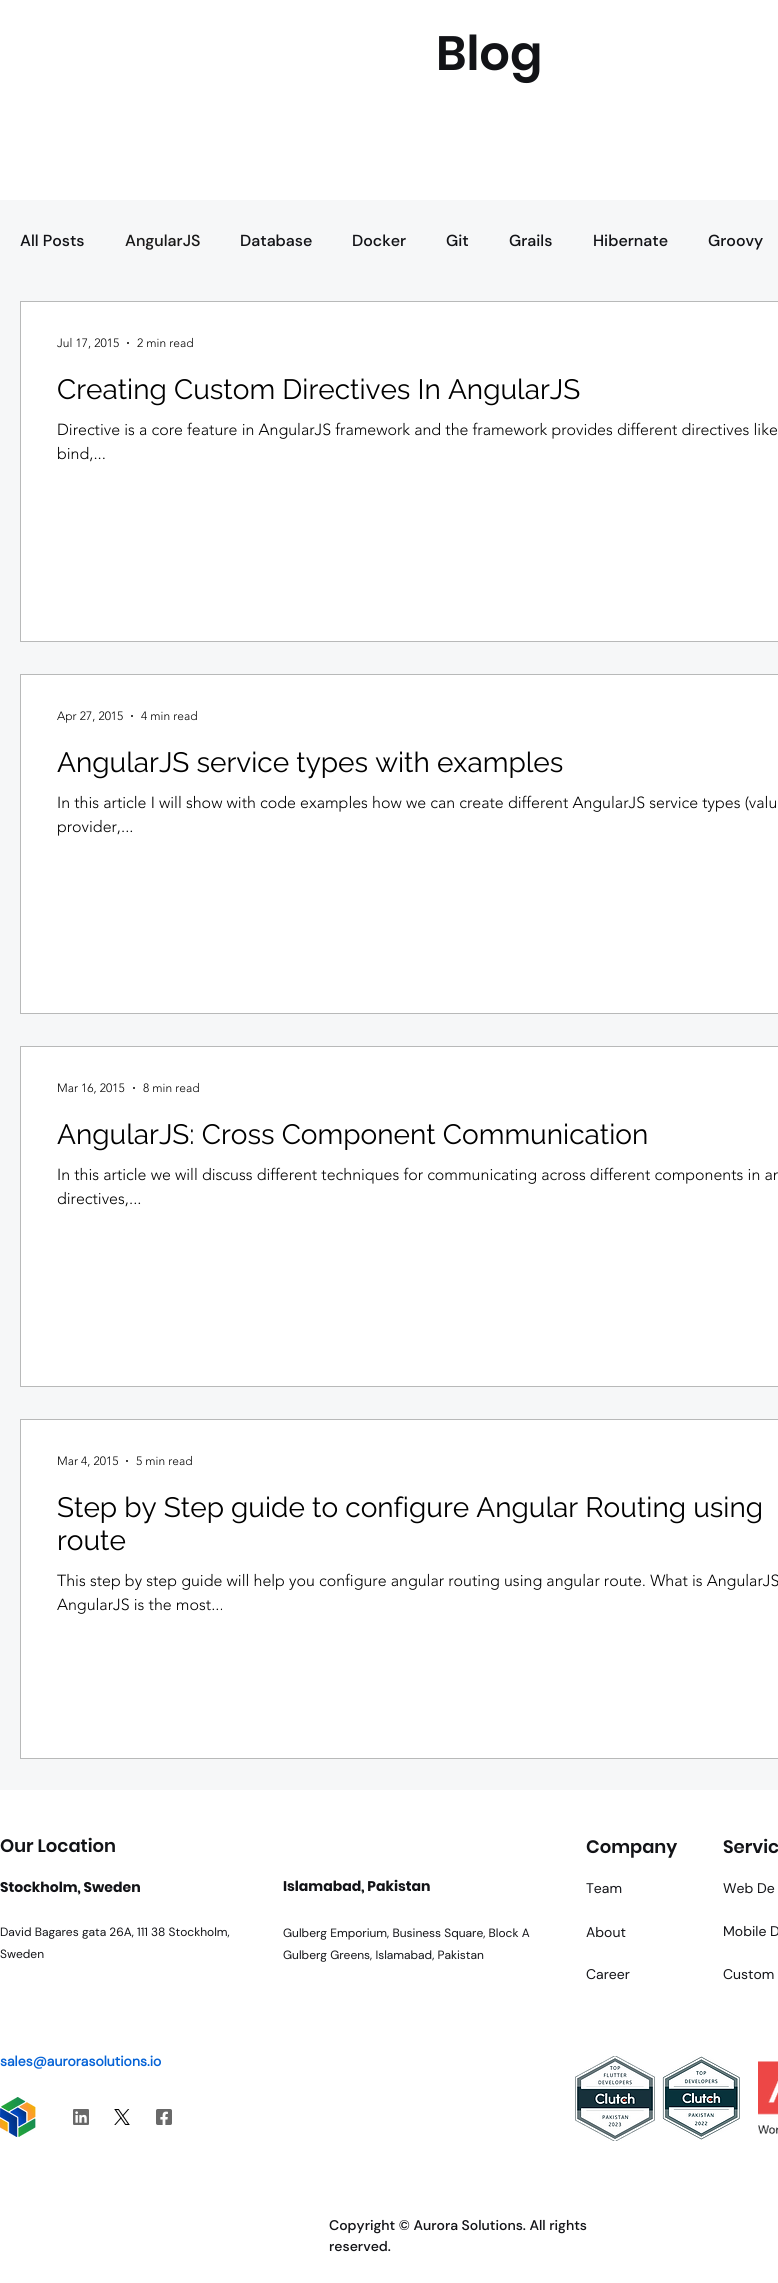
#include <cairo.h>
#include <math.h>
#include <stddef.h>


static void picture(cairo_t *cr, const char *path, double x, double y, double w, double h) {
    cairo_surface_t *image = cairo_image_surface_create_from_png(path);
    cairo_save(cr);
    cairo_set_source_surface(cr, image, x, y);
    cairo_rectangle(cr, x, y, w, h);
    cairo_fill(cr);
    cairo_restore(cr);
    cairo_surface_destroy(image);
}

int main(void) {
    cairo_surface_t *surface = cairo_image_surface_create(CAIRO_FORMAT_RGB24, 778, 2283);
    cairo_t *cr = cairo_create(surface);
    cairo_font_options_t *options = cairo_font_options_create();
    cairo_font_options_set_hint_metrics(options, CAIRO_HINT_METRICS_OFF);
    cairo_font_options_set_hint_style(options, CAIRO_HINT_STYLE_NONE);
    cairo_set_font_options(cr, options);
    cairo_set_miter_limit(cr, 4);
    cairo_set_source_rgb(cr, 0.961, 0.965, 0.969);
    cairo_paint(cr);
    cairo_set_source_rgb(cr, 1, 1, 1);
    cairo_rectangle(cr, 0, 0, 778, 200);
    cairo_fill(cr);
    cairo_select_font_face(cr, "Poppins SemiBold", CAIRO_FONT_SLANT_NORMAL, CAIRO_FONT_WEIGHT_NORMAL);
    cairo_set_font_size(cr, 48);
    cairo_set_source_rgb(cr, 0.071, 0.078, 0.09);
    cairo_move_to(cr, 436, 70);
    cairo_show_text(cr, "Blog");
    cairo_select_font_face(cr, "DM Sans Medium", CAIRO_FONT_SLANT_NORMAL, CAIRO_FONT_WEIGHT_NORMAL);
    cairo_set_font_size(cr, 16);
    cairo_move_to(cr, 20, 246);
    cairo_show_text(cr, "All Posts");
    cairo_set_source_rgb(cr, 0.098, 0.098, 0.098);
    cairo_move_to(cr, 125, 246);
    cairo_show_text(cr, "AngularJS");
    cairo_set_source_rgb(cr, 0.071, 0.078, 0.09);
    cairo_move_to(cr, 240, 246);
    cairo_show_text(cr, "Database");
    cairo_move_to(cr, 352, 246);
    cairo_show_text(cr, "Docker");
    cairo_move_to(cr, 446, 246);
    cairo_show_text(cr, "Git");
    cairo_move_to(cr, 509, 246);
    cairo_show_text(cr, "Grails");
    cairo_move_to(cr, 593, 246);
    cairo_show_text(cr, "Hibernate");
    cairo_move_to(cr, 708, 246);
    cairo_show_text(cr, "Groovy");
    cairo_rectangle(cr, 20.5, 301.5, 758, 340);
    cairo_set_source_rgb(cr, 0.722, 0.725, 0.725);
    cairo_set_line_width(cr, 1);
    cairo_stroke(cr);
    cairo_set_source_rgb(cr, 1, 1, 1);
    cairo_rectangle(cr, 21, 302, 757, 339);
    cairo_fill(cr);
    cairo_select_font_face(cr, "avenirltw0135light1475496 Light", CAIRO_FONT_SLANT_NORMAL, CAIRO_FONT_WEIGHT_NORMAL);
    cairo_set_font_size(cr, 12);
    cairo_set_source_rgb(cr, 0, 0, 0);
    cairo_move_to(cr, 57, 347);
    cairo_show_text(cr, "Jul 17, 2015");
    cairo_new_path(cr);
    cairo_arc(cr, 128, 343, 1, 0, 2 * M_PI);
    cairo_fill(cr);
    cairo_move_to(cr, 137, 347);
    cairo_show_text(cr, "2 min read");
    cairo_select_font_face(cr, "Raleway", CAIRO_FONT_SLANT_NORMAL, CAIRO_FONT_WEIGHT_NORMAL);
    cairo_set_font_size(cr, 28);
    cairo_move_to(cr, 57, 399);
    cairo_show_text(cr, "Creating Custom Directives In AngularJS");
    cairo_select_font_face(cr, "avenirltw0135light1475496 Light", CAIRO_FONT_SLANT_NORMAL, CAIRO_FONT_WEIGHT_NORMAL);
    cairo_set_font_size(cr, 16);
    cairo_move_to(cr, 57, 435);
    cairo_show_text(cr, "Directive is a core feature in AngularJS framework and the framework provides different directives like");
    cairo_move_to(cr, 57, 459);
    cairo_show_text(cr, "bind,...");
    cairo_rectangle(cr, 20.5, 674.5, 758, 339);
    cairo_set_source_rgb(cr, 0.722, 0.725, 0.725);
    cairo_stroke(cr);
    cairo_set_source_rgb(cr, 1, 1, 1);
    cairo_rectangle(cr, 21, 675, 757, 338);
    cairo_fill(cr);
    cairo_set_font_size(cr, 12);
    cairo_set_source_rgb(cr, 0, 0, 0);
    cairo_move_to(cr, 57, 720);
    cairo_show_text(cr, "Apr 27, 2015");
    cairo_new_path(cr);
    cairo_arc(cr, 132, 716, 1, 0, 2 * M_PI);
    cairo_fill(cr);
    cairo_move_to(cr, 141, 720);
    cairo_show_text(cr, "4 min read");
    cairo_select_font_face(cr, "Raleway", CAIRO_FONT_SLANT_NORMAL, CAIRO_FONT_WEIGHT_NORMAL);
    cairo_set_font_size(cr, 28);
    cairo_move_to(cr, 57, 772);
    cairo_show_text(cr, "AngularJS service types with examples");
    cairo_select_font_face(cr, "avenirltw0135light1475496 Light", CAIRO_FONT_SLANT_NORMAL, CAIRO_FONT_WEIGHT_NORMAL);
    cairo_set_font_size(cr, 16);
    cairo_move_to(cr, 57, 808);
    cairo_show_text(cr, "In this article I will show with code examples how we can create different AngularJS service types (valu");
    cairo_move_to(cr, 57, 832);
    cairo_show_text(cr, "provider,...");
    cairo_rectangle(cr, 20.5, 1046.5, 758, 340);
    cairo_set_source_rgb(cr, 0.722, 0.725, 0.725);
    cairo_stroke(cr);
    cairo_set_source_rgb(cr, 1, 1, 1);
    cairo_rectangle(cr, 21, 1047, 757, 339);
    cairo_fill(cr);
    cairo_set_font_size(cr, 12);
    cairo_set_source_rgb(cr, 0, 0, 0);
    cairo_move_to(cr, 57, 1092);
    cairo_show_text(cr, "Mar 16, 2015");
    cairo_new_path(cr);
    cairo_arc(cr, 134, 1088, 1, 0, 2 * M_PI);
    cairo_fill(cr);
    cairo_move_to(cr, 143, 1092);
    cairo_show_text(cr, "8 min read");
    cairo_select_font_face(cr, "Raleway", CAIRO_FONT_SLANT_NORMAL, CAIRO_FONT_WEIGHT_NORMAL);
    cairo_set_font_size(cr, 28);
    cairo_move_to(cr, 57, 1144);
    cairo_show_text(cr, "AngularJS: Cross Component Communication");
    cairo_select_font_face(cr, "avenirltw0135light1475496 Light", CAIRO_FONT_SLANT_NORMAL, CAIRO_FONT_WEIGHT_NORMAL);
    cairo_set_font_size(cr, 16);
    cairo_move_to(cr, 57, 1180);
    cairo_show_text(cr, "In this article we will discuss different techniques for communicating across different components in an");
    cairo_move_to(cr, 57, 1204);
    cairo_show_text(cr, "directives,...");
    cairo_rectangle(cr, 20.5, 1419.5, 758, 339);
    cairo_set_source_rgb(cr, 0.722, 0.725, 0.725);
    cairo_stroke(cr);
    cairo_set_source_rgb(cr, 1, 1, 1);
    cairo_rectangle(cr, 21, 1420, 757, 338);
    cairo_fill(cr);
    cairo_set_font_size(cr, 12);
    cairo_set_source_rgb(cr, 0, 0, 0);
    cairo_move_to(cr, 57, 1465);
    cairo_show_text(cr, "Mar 4, 2015");
    cairo_new_path(cr);
    cairo_arc(cr, 127, 1461, 1, 0, 2 * M_PI);
    cairo_fill(cr);
    cairo_move_to(cr, 136, 1465);
    cairo_show_text(cr, "5 min read");
    cairo_select_font_face(cr, "Raleway", CAIRO_FONT_SLANT_NORMAL, CAIRO_FONT_WEIGHT_NORMAL);
    cairo_set_font_size(cr, 28);
    cairo_move_to(cr, 57, 1517);
    cairo_show_text(cr, "Step by Step guide to configure Angular Routing using");
    cairo_move_to(cr, 57, 1550);
    cairo_show_text(cr, "route");
    cairo_select_font_face(cr, "avenirltw0135light1475496 Light", CAIRO_FONT_SLANT_NORMAL, CAIRO_FONT_WEIGHT_NORMAL);
    cairo_set_font_size(cr, 16);
    cairo_move_to(cr, 57, 1586);
    cairo_show_text(cr, "This step by step guide will help you configure angular routing using angular route. What is AngularJS");
    cairo_move_to(cr, 57, 1610);
    cairo_show_text(cr, "AngularJS is the most...");
    cairo_set_source_rgb(cr, 1, 1, 1);
    cairo_rectangle(cr, 0, 1790, 778, 493);
    cairo_fill(cr);
    cairo_select_font_face(cr, "Poppins SemiBold", CAIRO_FONT_SLANT_NORMAL, CAIRO_FONT_WEIGHT_NORMAL);
    cairo_set_font_size(cr, 18);
    cairo_set_source_rgb(cr, 0.071, 0.078, 0.09);
    cairo_move_to(cr, 0, 1852);
    cairo_show_text(cr, "Our Location");
    cairo_select_font_face(cr, "Poppins", CAIRO_FONT_SLANT_NORMAL, CAIRO_FONT_WEIGHT_BOLD);
    cairo_set_font_size(cr, 14);
    cairo_move_to(cr, 0, 1892);
    cairo_show_text(cr, "Stockholm, Sweden");
    cairo_select_font_face(cr, "DM Sans", CAIRO_FONT_SLANT_NORMAL, CAIRO_FONT_WEIGHT_NORMAL);
    cairo_set_font_size(cr, 12);
    cairo_move_to(cr, 0, 1936);
    cairo_show_text(cr, "David Bagares gata 26A, 111 38 Stockholm,");
    cairo_move_to(cr, 0, 1958);
    cairo_show_text(cr, "Sweden");
    cairo_select_font_face(cr, "DM Sans", CAIRO_FONT_SLANT_NORMAL, CAIRO_FONT_WEIGHT_BOLD);
    cairo_set_font_size(cr, 14);
    cairo_set_source_rgb(cr, 0.016, 0.384, 0.839);
    cairo_move_to(cr, 0, 2066);
    cairo_show_text(cr, "sales@aurorasolutions.io");
    cairo_select_font_face(cr, "Poppins", CAIRO_FONT_SLANT_NORMAL, CAIRO_FONT_WEIGHT_BOLD);
    cairo_set_source_rgb(cr, 0.071, 0.078, 0.09);
    cairo_move_to(cr, 283, 1891);
    cairo_show_text(cr, "Islamabad, Pakistan");
    cairo_select_font_face(cr, "DM Sans", CAIRO_FONT_SLANT_NORMAL, CAIRO_FONT_WEIGHT_NORMAL);
    cairo_set_font_size(cr, 12);
    cairo_move_to(cr, 283, 1937);
    cairo_show_text(cr, "Gulberg Emporium, Business Square, Block A");
    cairo_move_to(cr, 283, 1959);
    cairo_show_text(cr, "Gulberg Greens, Islamabad, Pakistan");
    cairo_select_font_face(cr, "Poppins SemiBold", CAIRO_FONT_SLANT_NORMAL, CAIRO_FONT_WEIGHT_NORMAL);
    cairo_set_font_size(cr, 18);
    cairo_move_to(cr, 586, 1853);
    cairo_show_text(cr, "Company");
    cairo_select_font_face(cr, "DM Sans", CAIRO_FONT_SLANT_NORMAL, CAIRO_FONT_WEIGHT_NORMAL);
    cairo_set_font_size(cr, 14);
    cairo_move_to(cr, 586, 1893);
    cairo_show_text(cr, "Team");
    cairo_move_to(cr, 586, 1937);
    cairo_show_text(cr, "About");
    cairo_move_to(cr, 586, 1979);
    cairo_show_text(cr, "Career");
    cairo_select_font_face(cr, "Poppins SemiBold", CAIRO_FONT_SLANT_NORMAL, CAIRO_FONT_WEIGHT_NORMAL);
    cairo_set_font_size(cr, 18);
    cairo_move_to(cr, 723, 1853);
    cairo_show_text(cr, "Servic");
    cairo_select_font_face(cr, "DM Sans", CAIRO_FONT_SLANT_NORMAL, CAIRO_FONT_WEIGHT_NORMAL);
    cairo_set_font_size(cr, 14);
    cairo_move_to(cr, 723, 1893);
    cairo_show_text(cr, "Web De");
    cairo_move_to(cr, 723, 1936);
    cairo_show_text(cr, "Mobile D");
    cairo_move_to(cr, 723, 1979);
    cairo_show_text(cr, "Custom");
    picture(cr, "img1.png", 0, 2097, 36, 40);
    picture(cr, "img2.png", 73, 2109, 16, 16);
    picture(cr, "img3.png", 114, 2109, 16, 16);
    picture(cr, "img4.png", 156, 2109, 16, 16);
    picture(cr, "img5.png", 575, 2056, 80, 85);
    picture(cr, "img6.png", 662, 2056, 78, 84);
    picture(cr, "img7.png", 758, 2061, 20, 74);
    cairo_select_font_face(cr, "DM Sans Medium", CAIRO_FONT_SLANT_NORMAL, CAIRO_FONT_WEIGHT_NORMAL);
    cairo_move_to(cr, 329, 2230);
    cairo_show_text(cr, "Copyright © Aurora Solutions. All rights");
    cairo_move_to(cr, 329, 2251);
    cairo_show_text(cr, "reserved.");
    cairo_surface_write_to_png(surface, "page.png");
    cairo_font_options_destroy(options);
    cairo_destroy(cr);
    cairo_surface_destroy(surface);
    return 0;
}
